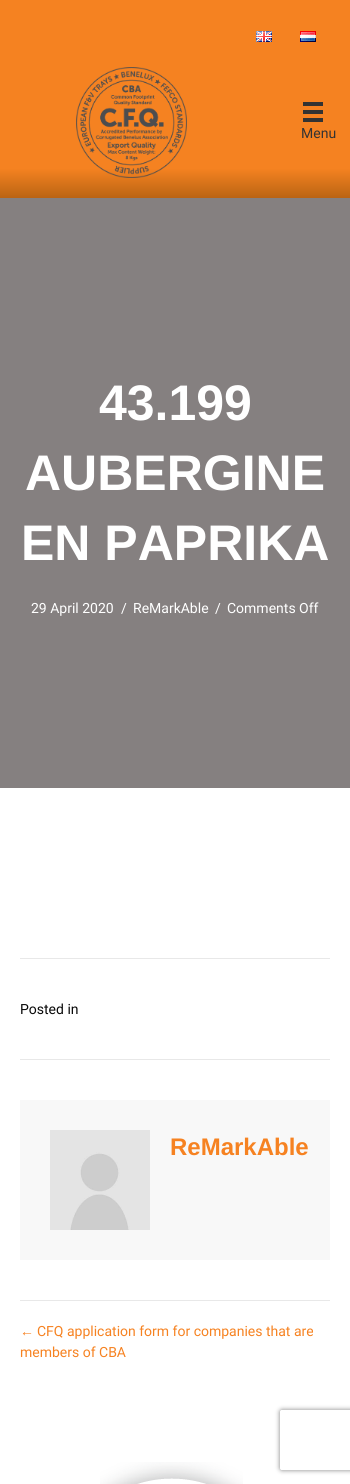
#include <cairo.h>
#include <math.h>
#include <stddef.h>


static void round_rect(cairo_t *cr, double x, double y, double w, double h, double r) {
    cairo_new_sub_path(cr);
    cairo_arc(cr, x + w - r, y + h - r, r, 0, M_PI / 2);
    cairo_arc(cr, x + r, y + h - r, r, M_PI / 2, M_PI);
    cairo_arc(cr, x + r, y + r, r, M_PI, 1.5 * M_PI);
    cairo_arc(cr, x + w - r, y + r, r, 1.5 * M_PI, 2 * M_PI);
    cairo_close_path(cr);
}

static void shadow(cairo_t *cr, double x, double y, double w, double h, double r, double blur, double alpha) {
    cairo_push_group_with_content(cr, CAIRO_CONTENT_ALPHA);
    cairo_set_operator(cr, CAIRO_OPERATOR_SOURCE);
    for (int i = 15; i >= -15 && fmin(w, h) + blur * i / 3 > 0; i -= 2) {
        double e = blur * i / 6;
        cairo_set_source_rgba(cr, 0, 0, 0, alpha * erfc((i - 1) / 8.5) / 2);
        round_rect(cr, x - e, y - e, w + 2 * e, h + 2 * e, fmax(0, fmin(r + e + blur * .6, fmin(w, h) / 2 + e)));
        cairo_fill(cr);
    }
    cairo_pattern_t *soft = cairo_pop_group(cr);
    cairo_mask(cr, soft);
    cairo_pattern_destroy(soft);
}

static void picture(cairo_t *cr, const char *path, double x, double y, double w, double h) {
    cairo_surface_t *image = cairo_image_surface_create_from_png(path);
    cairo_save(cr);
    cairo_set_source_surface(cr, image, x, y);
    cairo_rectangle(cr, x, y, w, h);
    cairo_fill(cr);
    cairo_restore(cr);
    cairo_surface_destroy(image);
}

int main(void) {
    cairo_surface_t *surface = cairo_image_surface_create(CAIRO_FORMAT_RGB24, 350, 1484);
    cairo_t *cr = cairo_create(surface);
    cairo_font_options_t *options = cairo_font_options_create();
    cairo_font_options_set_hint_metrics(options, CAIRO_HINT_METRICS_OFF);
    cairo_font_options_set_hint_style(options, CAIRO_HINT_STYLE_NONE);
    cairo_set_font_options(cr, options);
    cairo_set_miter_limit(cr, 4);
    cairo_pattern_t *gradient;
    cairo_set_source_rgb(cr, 1, 1, 1);
    cairo_paint(cr);
    gradient = cairo_pattern_create_linear(175, 0, 175, 198);
    cairo_pattern_add_color_stop_rgba(gradient, 0.85, 0.961, 0.51, 0.129, 1);
    cairo_pattern_add_color_stop_rgba(gradient, 1, 0.729, 0.392, 0.075, 1);
    cairo_set_source(cr, gradient);
    cairo_pattern_destroy(gradient);
    cairo_rectangle(cr, 0, 0, 350, 198);
    cairo_fill(cr);
    picture(cr, "img1.png", 256, 31, 16, 11);
    picture(cr, "img2.png", 300, 31, 16, 11);
    picture(cr, "img3.png", 76, 67, 111, 111);
    cairo_set_source_rgb(cr, 0.2, 0.2, 0.2);
    cairo_rectangle(cr, 303, 102, 20, 4);
    cairo_fill(cr);
    cairo_rectangle(cr, 303, 110, 20, 4);
    cairo_fill(cr);
    cairo_rectangle(cr, 303, 118, 20, 4);
    cairo_fill(cr);
    cairo_select_font_face(cr, "Roboto", CAIRO_FONT_SLANT_NORMAL, CAIRO_FONT_WEIGHT_NORMAL);
    cairo_set_font_size(cr, 14);
    cairo_move_to(cr, 301, 138);
    cairo_show_text(cr, "Menu");
    cairo_set_source_rgb(cr, 0.522, 0.502, 0.502);
    cairo_rectangle(cr, 0, 198, 350, 590);
    cairo_fill(cr);
    cairo_select_font_face(cr, "Liberation Sans", CAIRO_FONT_SLANT_NORMAL, CAIRO_FONT_WEIGHT_BOLD);
    cairo_set_font_size(cr, 50);
    cairo_set_source_rgb(cr, 1, 1, 1);
    cairo_move_to(cr, 99, 420);
    cairo_show_text(cr, "43.199");
    cairo_move_to(cr, 25, 490);
    cairo_show_text(cr, "AUBERGINE");
    cairo_move_to(cr, 21, 560);
    cairo_show_text(cr, "EN PAPRIKA");
    cairo_select_font_face(cr, "Roboto", CAIRO_FONT_SLANT_NORMAL, CAIRO_FONT_WEIGHT_NORMAL);
    cairo_set_font_size(cr, 14);
    cairo_move_to(cr, 31, 613);
    cairo_show_text(cr, "29 April 2020");
    cairo_move_to(cr, 121, 613);
    cairo_show_text(cr, "/");
    cairo_move_to(cr, 133, 613);
    cairo_show_text(cr, "ReMarkAble");
    cairo_move_to(cr, 215, 613);
    cairo_show_text(cr, "/");
    cairo_move_to(cr, 227, 613);
    cairo_show_text(cr, "Comments Off");
    cairo_set_source_rgb(cr, 0.91, 0.91, 0.91);
    cairo_rectangle(cr, 20, 958, 310, 1);
    cairo_fill(cr);
    cairo_set_source_rgb(cr, 0.039, 0.039, 0.039);
    cairo_move_to(cr, 20, 1014);
    cairo_show_text(cr, "Posted in");
    cairo_set_source_rgb(cr, 0.91, 0.91, 0.91);
    cairo_rectangle(cr, 20, 1059, 310, 1);
    cairo_fill(cr);
    cairo_set_source_rgb(cr, 0.969, 0.969, 0.969);
    cairo_rectangle(cr, 20, 1100, 310, 160);
    cairo_fill(cr);
    picture(cr, "img4.png", 50, 1130, 100, 100);
    cairo_select_font_face(cr, "Liberation Sans", CAIRO_FONT_SLANT_NORMAL, CAIRO_FONT_WEIGHT_BOLD);
    cairo_set_font_size(cr, 24);
    cairo_set_source_rgb(cr, 0.961, 0.51, 0.129);
    cairo_move_to(cr, 170, 1155);
    cairo_show_text(cr, "ReMarkAble");
    cairo_set_source_rgb(cr, 0.91, 0.91, 0.91);
    cairo_rectangle(cr, 20, 1300, 310, 1);
    cairo_fill(cr);
    cairo_select_font_face(cr, "Liberation Sans", CAIRO_FONT_SLANT_NORMAL, CAIRO_FONT_WEIGHT_NORMAL);
    cairo_set_font_size(cr, 14);
    cairo_set_source_rgb(cr, 0.961, 0.51, 0.129);
    cairo_move_to(cr, 20, 1336);
    cairo_show_text(cr, "←");
    cairo_select_font_face(cr, "Roboto", CAIRO_FONT_SLANT_NORMAL, CAIRO_FONT_WEIGHT_NORMAL);
    cairo_move_to(cr, 37, 1336);
    cairo_show_text(cr, "CFQ application form for companies that are");
    cairo_move_to(cr, 20, 1357);
    cairo_show_text(cr, "members of CBA");
    picture(cr, "img5.png", 100, 1462, 143, 22);
    cairo_save(cr);
    cairo_set_fill_rule(cr, CAIRO_FILL_RULE_EVEN_ODD);
    cairo_new_path(cr);
    cairo_move_to(cr, 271, 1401);
    cairo_line_to(cr, 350, 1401);
    cairo_line_to(cr, 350, 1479);
    cairo_line_to(cr, 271, 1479);
    cairo_close_path(cr);
    cairo_move_to(cr, 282, 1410);
    cairo_line_to(cr, 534, 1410);
    cairo_curve_to(cr, 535, 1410, 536, 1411, 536, 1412);
    cairo_line_to(cr, 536, 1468);
    cairo_curve_to(cr, 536, 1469, 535, 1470, 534, 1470);
    cairo_line_to(cr, 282, 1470);
    cairo_curve_to(cr, 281, 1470, 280, 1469, 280, 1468);
    cairo_line_to(cr, 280, 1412);
    cairo_curve_to(cr, 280, 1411, 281, 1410, 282, 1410);
    cairo_close_path(cr);
    cairo_clip(cr);
    cairo_set_source_rgb(cr, 0.502, 0.502, 0.502);
    shadow(cr, 280, 1410, 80, 60, 2, 2.5, 1);
    cairo_restore(cr);
    cairo_surface_write_to_png(surface, "page.png");
    cairo_font_options_destroy(options);
    cairo_destroy(cr);
    cairo_surface_destroy(surface);
    return 0;
}
